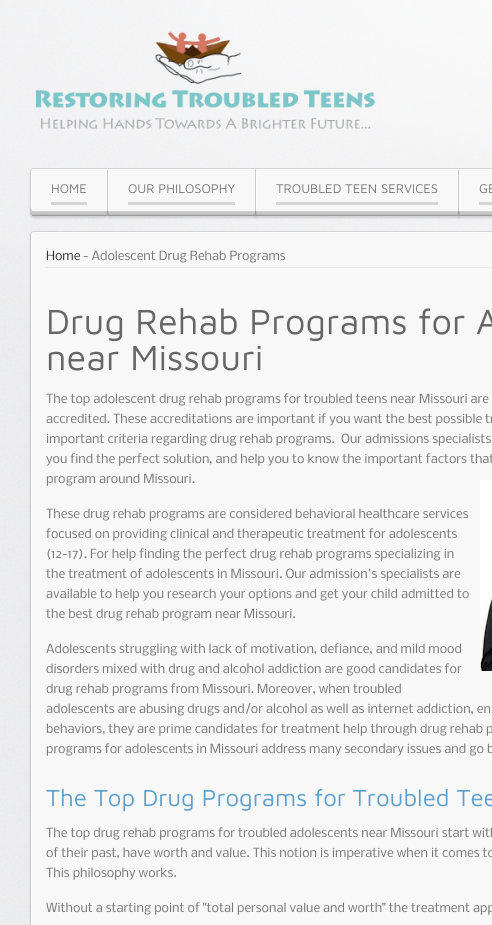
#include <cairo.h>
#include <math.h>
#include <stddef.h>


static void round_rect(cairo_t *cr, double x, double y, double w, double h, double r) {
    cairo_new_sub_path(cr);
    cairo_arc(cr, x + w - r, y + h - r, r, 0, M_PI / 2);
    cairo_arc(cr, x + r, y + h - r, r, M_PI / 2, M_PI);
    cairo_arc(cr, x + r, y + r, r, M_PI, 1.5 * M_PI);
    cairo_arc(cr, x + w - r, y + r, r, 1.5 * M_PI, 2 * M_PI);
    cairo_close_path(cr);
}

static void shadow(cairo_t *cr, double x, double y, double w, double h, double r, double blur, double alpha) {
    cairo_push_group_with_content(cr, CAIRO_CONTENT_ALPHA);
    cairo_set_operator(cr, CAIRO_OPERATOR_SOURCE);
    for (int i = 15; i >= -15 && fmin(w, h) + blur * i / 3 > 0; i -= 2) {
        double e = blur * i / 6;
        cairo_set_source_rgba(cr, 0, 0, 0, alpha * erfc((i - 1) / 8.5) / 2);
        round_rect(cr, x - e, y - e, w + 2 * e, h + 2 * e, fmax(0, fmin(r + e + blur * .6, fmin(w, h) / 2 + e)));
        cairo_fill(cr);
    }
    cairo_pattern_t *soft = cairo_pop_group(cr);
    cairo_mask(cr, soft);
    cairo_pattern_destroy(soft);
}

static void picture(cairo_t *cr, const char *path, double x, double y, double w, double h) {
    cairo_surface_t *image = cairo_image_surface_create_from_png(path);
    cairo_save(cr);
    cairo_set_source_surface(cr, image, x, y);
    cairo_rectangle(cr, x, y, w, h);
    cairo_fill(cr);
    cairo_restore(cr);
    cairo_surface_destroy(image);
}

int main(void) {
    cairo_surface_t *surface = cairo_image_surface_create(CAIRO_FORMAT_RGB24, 492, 925);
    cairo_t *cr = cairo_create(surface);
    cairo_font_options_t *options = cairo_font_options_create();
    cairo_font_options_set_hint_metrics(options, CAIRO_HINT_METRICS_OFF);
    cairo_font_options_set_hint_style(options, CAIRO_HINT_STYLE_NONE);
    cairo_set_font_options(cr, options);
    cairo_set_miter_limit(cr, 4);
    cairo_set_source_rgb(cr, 1, 1, 1);
    cairo_paint(cr);
    picture(cr, "img1.png", 0, 0, 492, 925);
    picture(cr, "img2.png", 35, 31, 340, 99);
    picture(cr, "img3.png", 30, 207, 462, 8);
    cairo_set_source_rgba(cr, 0, 0, 0, 0.25);
    cairo_rectangle(cr, 32, 215, 460, 1);
    cairo_fill(cr);
    cairo_save(cr);
    cairo_set_fill_rule(cr, CAIRO_FILL_RULE_EVEN_ODD);
    cairo_new_path(cr);
    cairo_move_to(cr, 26, 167);
    cairo_line_to(cr, 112, 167);
    cairo_line_to(cr, 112, 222);
    cairo_line_to(cr, 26, 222);
    cairo_close_path(cr);
    cairo_move_to(cr, 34, 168);
    cairo_line_to(cr, 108, 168);
    cairo_line_to(cr, 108, 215);
    cairo_line_to(cr, 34, 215);
    cairo_curve_to(cr, 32, 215, 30, 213, 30, 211);
    cairo_line_to(cr, 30, 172);
    cairo_curve_to(cr, 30, 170, 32, 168, 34, 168);
    cairo_close_path(cr);
    cairo_clip(cr);
    cairo_set_source_rgb(cr, 0, 0, 0);
    shadow(cr, 30, 171, 78, 47, 4, 1, 0.15);
    cairo_restore(cr);
    picture(cr, "img4.png", 107, 168, 1, 47);
    cairo_set_source_rgb(cr, 0.969, 0.969, 0.976);
    cairo_new_path(cr);
    cairo_move_to(cr, 34, 169);
    cairo_line_to(cr, 107, 169);
    cairo_line_to(cr, 107, 211);
    cairo_line_to(cr, 34, 211);
    cairo_curve_to(cr, 32, 211, 31, 209, 31, 207);
    cairo_line_to(cr, 31, 172);
    cairo_curve_to(cr, 31, 170, 32, 169, 34, 169);
    cairo_close_path(cr);
    cairo_fill(cr);
    cairo_new_path(cr);
    cairo_move_to(cr, 34, 169.5);
    cairo_line_to(cr, 106.5, 169.5);
    cairo_line_to(cr, 106.5, 210.5);
    cairo_line_to(cr, 34, 210.5);
    cairo_curve_to(cr, 32.5, 210.5, 31.5, 209, 31.5, 207);
    cairo_line_to(cr, 31.5, 172);
    cairo_curve_to(cr, 31.5, 170.5, 32.5, 169.5, 34, 169.5);
    cairo_close_path(cr);
    cairo_set_source_rgb(cr, 1, 1, 1);
    cairo_set_line_width(cr, 1);
    cairo_stroke(cr);
    cairo_set_source_rgb(cr, 0.827, 0.827, 0.827);
    cairo_set_fill_rule(cr, CAIRO_FILL_RULE_EVEN_ODD);
    cairo_new_path(cr);
    cairo_move_to(cr, 34, 168);
    cairo_line_to(cr, 107, 168);
    cairo_line_to(cr, 107, 211);
    cairo_line_to(cr, 34, 211);
    cairo_curve_to(cr, 32, 211, 30, 209, 30, 207);
    cairo_line_to(cr, 30, 172);
    cairo_curve_to(cr, 30, 170, 32, 168, 34, 168);
    cairo_close_path(cr);
    cairo_move_to(cr, 34, 169);
    cairo_line_to(cr, 107, 169);
    cairo_line_to(cr, 107, 211);
    cairo_line_to(cr, 34, 211);
    cairo_curve_to(cr, 32, 211, 31, 209, 31, 207);
    cairo_line_to(cr, 31, 172);
    cairo_curve_to(cr, 31, 170, 32, 169, 34, 169);
    cairo_close_path(cr);
    cairo_fill(cr);
    cairo_set_source_rgb(cr, 0.835, 0.835, 0.835);
    cairo_rectangle(cr, 51, 202, 36, 3);
    cairo_fill(cr);
    cairo_select_font_face(cr, "Maven Pro", CAIRO_FONT_SLANT_NORMAL, CAIRO_FONT_WEIGHT_NORMAL);
    cairo_set_font_size(cr, 13);
    cairo_set_source_rgb(cr, 0.467, 0.467, 0.467);
    cairo_move_to(cr, 51, 193);
    cairo_show_text(cr, "HOME");
    cairo_save(cr);
    cairo_new_path(cr);
    cairo_move_to(cr, 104, 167);
    cairo_line_to(cr, 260, 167);
    cairo_line_to(cr, 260, 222);
    cairo_line_to(cr, 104, 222);
    cairo_close_path(cr);
    cairo_move_to(cr, 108, 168);
    cairo_line_to(cr, 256, 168);
    cairo_line_to(cr, 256, 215);
    cairo_line_to(cr, 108, 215);
    cairo_close_path(cr);
    cairo_clip(cr);
    cairo_set_source_rgb(cr, 0, 0, 0);
    shadow(cr, 108, 171, 148, 47, 0, 1, 0.15);
    cairo_restore(cr);
    picture(cr, "img4.png", 255, 168, 1, 47);
    cairo_set_source_rgb(cr, 0.969, 0.969, 0.976);
    cairo_rectangle(cr, 108.5, 169.5, 146, 41);
    cairo_fill_preserve(cr);
    cairo_set_source_rgb(cr, 1, 1, 1);
    cairo_stroke(cr);
    cairo_set_source_rgb(cr, 0.827, 0.827, 0.827);
    cairo_rectangle(cr, 108, 168, 147, 1);
    cairo_fill(cr);
    cairo_set_source_rgb(cr, 0.835, 0.835, 0.835);
    cairo_rectangle(cr, 128, 202, 107, 3);
    cairo_fill(cr);
    cairo_set_source_rgb(cr, 0.467, 0.467, 0.467);
    cairo_move_to(cr, 128, 193);
    cairo_show_text(cr, "OUR PHILOSOPHY");
    cairo_save(cr);
    cairo_new_path(cr);
    cairo_move_to(cr, 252, 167);
    cairo_line_to(cr, 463, 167);
    cairo_line_to(cr, 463, 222);
    cairo_line_to(cr, 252, 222);
    cairo_close_path(cr);
    cairo_move_to(cr, 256, 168);
    cairo_line_to(cr, 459, 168);
    cairo_line_to(cr, 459, 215);
    cairo_line_to(cr, 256, 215);
    cairo_close_path(cr);
    cairo_clip(cr);
    cairo_set_source_rgb(cr, 0, 0, 0);
    shadow(cr, 256, 171, 203, 47, 0, 1, 0.15);
    cairo_restore(cr);
    picture(cr, "img4.png", 458, 168, 1, 47);
    cairo_set_source_rgb(cr, 0.969, 0.969, 0.976);
    cairo_rectangle(cr, 256.5, 169.5, 201, 41);
    cairo_fill_preserve(cr);
    cairo_set_source_rgb(cr, 1, 1, 1);
    cairo_stroke(cr);
    cairo_set_source_rgb(cr, 0.827, 0.827, 0.827);
    cairo_rectangle(cr, 256, 168, 202, 1);
    cairo_fill(cr);
    cairo_set_source_rgb(cr, 0.835, 0.835, 0.835);
    cairo_rectangle(cr, 276, 202, 162, 3);
    cairo_fill(cr);
    cairo_set_source_rgb(cr, 0.467, 0.467, 0.467);
    cairo_move_to(cr, 276, 193);
    cairo_show_text(cr, "TROUBLED TEEN SERVICES");
    cairo_save(cr);
    cairo_new_path(cr);
    cairo_move_to(cr, 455, 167);
    cairo_line_to(cr, 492, 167);
    cairo_line_to(cr, 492, 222);
    cairo_line_to(cr, 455, 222);
    cairo_close_path(cr);
    cairo_move_to(cr, 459, 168);
    cairo_line_to(cr, 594, 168);
    cairo_line_to(cr, 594, 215);
    cairo_line_to(cr, 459, 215);
    cairo_close_path(cr);
    cairo_clip(cr);
    cairo_set_source_rgb(cr, 0, 0, 0);
    shadow(cr, 459, 171, 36, 47, 0, 1, 0.15);
    cairo_restore(cr);
    cairo_set_source_rgb(cr, 0.969, 0.969, 0.976);
    cairo_rectangle(cr, 459.5, 169.5, 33, 41);
    cairo_fill_preserve(cr);
    cairo_set_source_rgb(cr, 1, 1, 1);
    cairo_stroke(cr);
    cairo_set_source_rgb(cr, 0.827, 0.827, 0.827);
    cairo_rectangle(cr, 459, 168, 33, 1);
    cairo_fill(cr);
    cairo_set_source_rgb(cr, 0.835, 0.835, 0.835);
    cairo_rectangle(cr, 479, 202, 13, 3);
    cairo_fill(cr);
    cairo_set_source_rgb(cr, 0.467, 0.467, 0.467);
    cairo_move_to(cr, 479, 193);
    cairo_show_text(cr, "GE");
    cairo_set_source_rgb(cr, 0, 0, 0);
    shadow(cr, 30, 232, 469, 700, 4, 1, 0.08);
    cairo_new_path(cr);
    cairo_move_to(cr, 31.5, 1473.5);
    cairo_curve_to(cr, 31, 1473, 30.5, 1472, 30.5, 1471);
    cairo_line_to(cr, 30.5, 235);
    cairo_curve_to(cr, 30.5, 234, 31, 233, 31.5, 232.5);
    cairo_curve_to(cr, 32, 232, 33, 231.5, 34, 231.5);
    cairo_line_to(cr, 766, 231.5);
    cairo_curve_to(cr, 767, 231.5, 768, 232, 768.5, 232.5);
    cairo_curve_to(cr, 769, 233, 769.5, 234, 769.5, 235);
    cairo_line_to(cr, 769.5, 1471);
    cairo_curve_to(cr, 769.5, 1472, 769, 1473, 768.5, 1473.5);
    cairo_set_source_rgba(cr, 0, 0, 0, 0.1);
    cairo_stroke(cr);
    cairo_set_source_rgb(cr, 0.969, 0.969, 0.976);
    round_rect(cr, 31.5, 232.5, 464, 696, 2.5);
    cairo_fill_preserve(cr);
    cairo_set_source_rgb(cr, 1, 1, 1);
    cairo_stroke(cr);
    cairo_select_font_face(cr, "Nobile", CAIRO_FONT_SLANT_NORMAL, CAIRO_FONT_WEIGHT_NORMAL);
    cairo_set_font_size(cr, 12);
    cairo_set_source_rgb(cr, 0.2, 0.2, 0.2);
    cairo_move_to(cr, 46, 260);
    cairo_show_text(cr, "Home");
    cairo_set_source_rgb(cr, 0.467, 0.467, 0.467);
    cairo_move_to(cr, 83, 260);
    cairo_show_text(cr, "- Adolescent Drug Rehab Programs");
    cairo_set_source_rgb(cr, 0.91, 0.914, 0.918);
    cairo_rectangle(cr, 46, 267, 446, 1);
    cairo_fill(cr);
    cairo_select_font_face(cr, "Maven Pro", CAIRO_FONT_SLANT_NORMAL, CAIRO_FONT_WEIGHT_NORMAL);
    cairo_set_font_size(cr, 36);
    cairo_set_source_rgb(cr, 0.4, 0.4, 0.4);
    cairo_move_to(cr, 46, 334);
    cairo_show_text(cr, "Drug Rehab Programs for A");
    cairo_move_to(cr, 46, 370);
    cairo_show_text(cr, "near Missouri");
    cairo_select_font_face(cr, "Nobile", CAIRO_FONT_SLANT_NORMAL, CAIRO_FONT_WEIGHT_NORMAL);
    cairo_set_font_size(cr, 12);
    cairo_set_source_rgb(cr, 0.467, 0.467, 0.467);
    cairo_move_to(cr, 46, 403);
    cairo_show_text(cr, "The top adolescent drug rehab programs for troubled teens near Missouri are");
    cairo_move_to(cr, 46, 423);
    cairo_show_text(cr, "accredited. These accreditations are important if you want the best possible tr");
    cairo_move_to(cr, 46, 443);
    cairo_show_text(cr, "important criteria regarding drug rehab programs.  Our admissions specialists");
    cairo_move_to(cr, 46, 463);
    cairo_show_text(cr, "you find the perfect solution, and help you to know the important factors that");
    cairo_move_to(cr, 46, 483);
    cairo_show_text(cr, "program around Missouri.");
    picture(cr, "img5.png", 480, 480, 12, 191);
    cairo_move_to(cr, 46, 518);
    cairo_show_text(cr, "These drug rehab programs are considered behavioral healthcare services");
    cairo_move_to(cr, 46, 538);
    cairo_show_text(cr, "focused on providing clinical and therapeutic treatment for adolescents");
    cairo_move_to(cr, 46, 558);
    cairo_show_text(cr, "(12-17). For help finding the perfect drug rehab programs specializing in");
    cairo_move_to(cr, 46, 578);
    cairo_show_text(cr, "the treatment of adolescents in Missouri. Our admission's specialists are");
    cairo_move_to(cr, 46, 598);
    cairo_show_text(cr, "available to help you research your options and get your child admitted to");
    cairo_move_to(cr, 46, 618);
    cairo_show_text(cr, "the best drug rehab program near Missouri.");
    cairo_move_to(cr, 46, 653);
    cairo_show_text(cr, "Adolescents struggling with lack of motivation, defiance, and mild mood");
    cairo_move_to(cr, 46, 673);
    cairo_show_text(cr, "disorders mixed with drug and alcohol addiction are good candidates for");
    cairo_move_to(cr, 46, 693);
    cairo_show_text(cr, "drug rehab programs from Missouri. Moreover, when troubled");
    cairo_move_to(cr, 46, 713);
    cairo_show_text(cr, "adolescents are abusing drugs and/or alcohol as well as internet addiction, en");
    cairo_move_to(cr, 46, 733);
    cairo_show_text(cr, "behaviors, they are prime candidates for treatment help through drug rehab p");
    cairo_move_to(cr, 46, 753);
    cairo_show_text(cr, "programs for adolescents in Missouri address many secondary issues and go b");
    cairo_select_font_face(cr, "Maven Pro", CAIRO_FONT_SLANT_NORMAL, CAIRO_FONT_WEIGHT_NORMAL);
    cairo_set_font_size(cr, 24);
    cairo_set_source_rgb(cr, 0.373, 0.624, 0.796);
    cairo_move_to(cr, 46, 806);
    cairo_show_text(cr, "The Top Drug Programs for Troubled Tee");
    cairo_select_font_face(cr, "Nobile", CAIRO_FONT_SLANT_NORMAL, CAIRO_FONT_WEIGHT_NORMAL);
    cairo_set_font_size(cr, 12);
    cairo_set_source_rgb(cr, 0.467, 0.467, 0.467);
    cairo_move_to(cr, 46, 837);
    cairo_show_text(cr, "The top drug rehab programs for troubled adolescents near Missouri start with");
    cairo_move_to(cr, 46, 857);
    cairo_show_text(cr, "of their past, have worth and value. This notion is imperative when it comes to");
    cairo_move_to(cr, 46, 877);
    cairo_show_text(cr, "This philosophy works.");
    cairo_move_to(cr, 46, 912);
    cairo_show_text(cr, "Without a starting point of \"total personal value and worth\" the treatment app");
    cairo_surface_write_to_png(surface, "page.png");
    cairo_font_options_destroy(options);
    cairo_destroy(cr);
    cairo_surface_destroy(surface);
    return 0;
}
